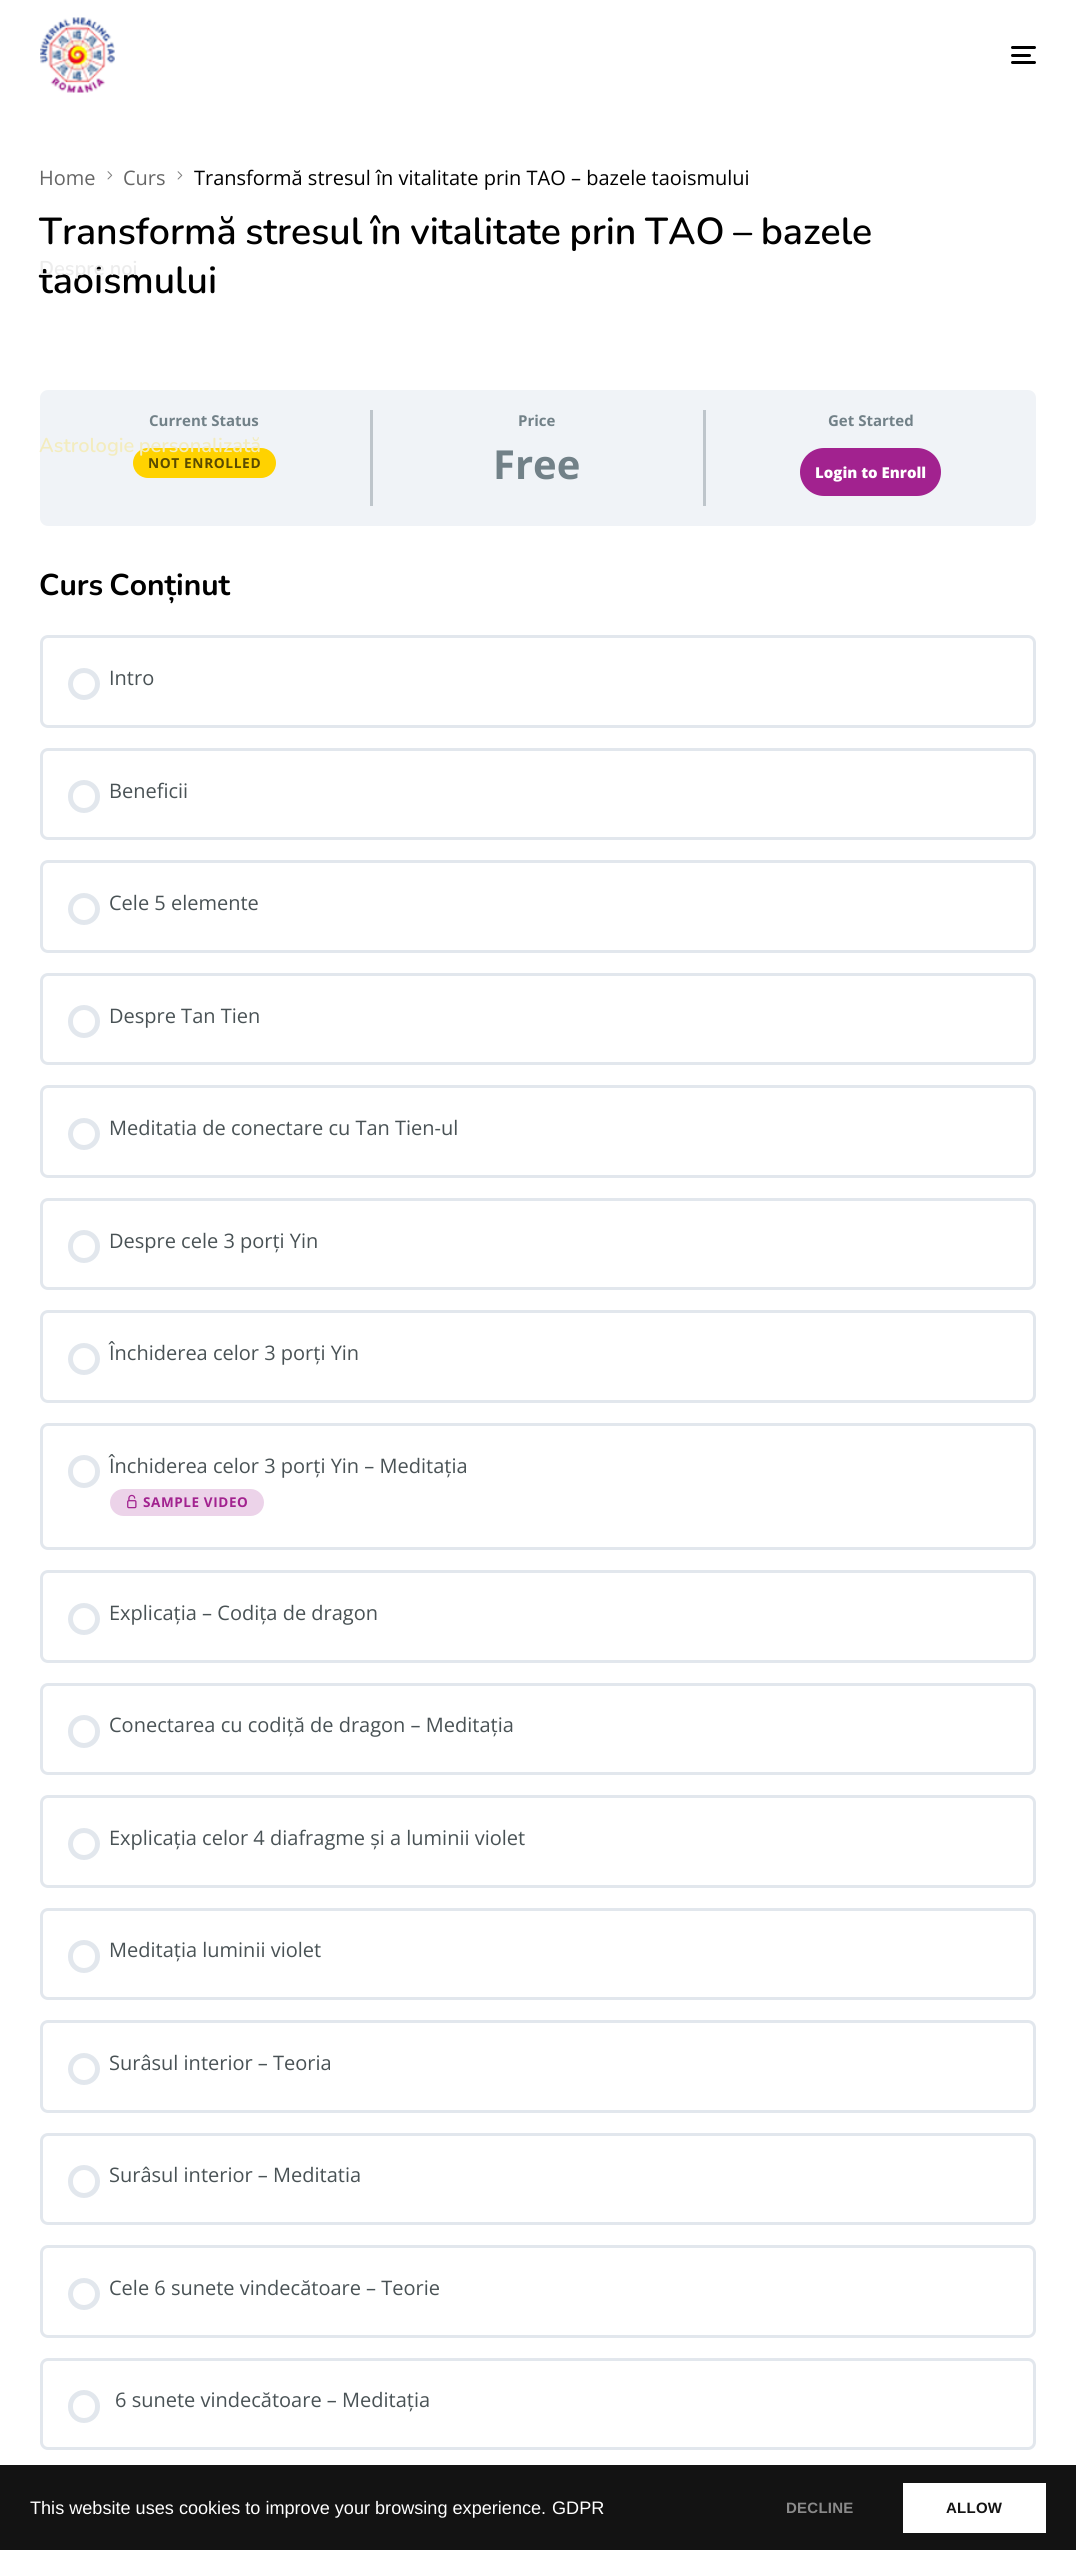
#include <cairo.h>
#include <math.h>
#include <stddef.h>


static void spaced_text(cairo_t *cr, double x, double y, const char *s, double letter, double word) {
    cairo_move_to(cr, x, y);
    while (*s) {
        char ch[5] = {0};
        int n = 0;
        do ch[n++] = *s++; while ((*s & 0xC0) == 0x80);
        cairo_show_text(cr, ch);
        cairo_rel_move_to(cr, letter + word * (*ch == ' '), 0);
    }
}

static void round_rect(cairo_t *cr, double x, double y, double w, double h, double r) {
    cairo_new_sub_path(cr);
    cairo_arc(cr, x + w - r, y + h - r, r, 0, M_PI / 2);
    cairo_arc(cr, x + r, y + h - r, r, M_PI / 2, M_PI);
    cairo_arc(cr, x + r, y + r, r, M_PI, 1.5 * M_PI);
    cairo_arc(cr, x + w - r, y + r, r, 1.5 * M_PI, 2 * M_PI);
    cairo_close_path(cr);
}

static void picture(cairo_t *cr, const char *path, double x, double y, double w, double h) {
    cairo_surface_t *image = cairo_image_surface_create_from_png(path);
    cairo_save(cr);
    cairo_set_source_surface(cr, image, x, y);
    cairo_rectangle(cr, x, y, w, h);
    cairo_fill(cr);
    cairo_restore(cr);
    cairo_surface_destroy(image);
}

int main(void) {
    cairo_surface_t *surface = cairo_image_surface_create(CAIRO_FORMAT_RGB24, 1076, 2550);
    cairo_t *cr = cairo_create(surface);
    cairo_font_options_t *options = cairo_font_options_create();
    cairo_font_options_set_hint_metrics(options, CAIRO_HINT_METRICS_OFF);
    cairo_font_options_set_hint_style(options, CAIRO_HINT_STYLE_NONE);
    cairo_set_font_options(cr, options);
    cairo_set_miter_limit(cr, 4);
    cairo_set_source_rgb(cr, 1, 1, 1);
    cairo_paint(cr);
    picture(cr, "img1.png", 40, 17, 75, 76);
    cairo_set_source_rgb(cr, 0, 0, 0);
    round_rect(cr, 1011, 46, 25, 3, 1.5);
    cairo_fill(cr);
    round_rect(cr, 1011, 54, 20, 3, 1.5);
    cairo_fill(cr);
    round_rect(cr, 1011, 61, 25, 3, 1.5);
    cairo_fill(cr);
    cairo_select_font_face(cr, "Open Sans", CAIRO_FONT_SLANT_NORMAL, CAIRO_FONT_WEIGHT_NORMAL);
    cairo_set_font_size(cr, 20);
    cairo_set_source_rgb(cr, 0.4, 0.4, 0.4);
    cairo_move_to(cr, 39, 185);
    cairo_show_text(cr, "Home");
    picture(cr, "img2.png", 107, 171, 6, 9);
    cairo_move_to(cr, 123, 185);
    cairo_show_text(cr, "Curs");
    picture(cr, "img3.png", 177, 171, 6, 9);
    cairo_set_source_rgb(cr, 0, 0, 0);
    cairo_move_to(cr, 194, 185);
    cairo_show_text(cr, "Transformă stresul în vitalitate prin TAO – bazele taoismului");
    cairo_select_font_face(cr, "Nunito SemiBold", CAIRO_FONT_SLANT_NORMAL, CAIRO_FONT_WEIGHT_NORMAL);
    cairo_set_font_size(cr, 37.5);
    spaced_text(cr, 39, 244, "Transformă stresul în vitalitate prin TAO – bazele", 0, -1.25);
    cairo_move_to(cr, 39, 293);
    cairo_show_text(cr, "taoismului");
    cairo_set_source_rgb(cr, 0.941, 0.953, 0.965);
    round_rect(cr, 40, 390, 996, 136, 8);
    cairo_fill(cr);
    cairo_set_source_rgb(cr, 0.745, 0.773, 0.796);
    cairo_rectangle(cr, 370, 410, 3, 96);
    cairo_fill(cr);
    cairo_select_font_face(cr, "Open Sans", CAIRO_FONT_SLANT_NORMAL, CAIRO_FONT_WEIGHT_BOLD);
    cairo_set_font_size(cr, 15);
    cairo_set_source_rgb(cr, 0.447, 0.506, 0.533);
    cairo_move_to(cr, 149, 426);
    cairo_show_text(cr, "Current Status");
    cairo_set_source_rgb(cr, 1, 0.824, 0);
    round_rect(cr, 133, 448, 143, 30, 15);
    cairo_fill(cr);
    cairo_set_font_size(cr, 13.75);
    cairo_set_source_rgb(cr, 0.349, 0.29, 0);
    spaced_text(cr, 148, 468, "NOT ENROLLED", 0.6, 0);
    cairo_set_source_rgb(cr, 0.745, 0.773, 0.796);
    cairo_rectangle(cr, 703, 410, 3, 96);
    cairo_fill(cr);
    cairo_set_font_size(cr, 15);
    cairo_set_source_rgb(cr, 0.447, 0.506, 0.533);
    cairo_move_to(cr, 518, 426);
    cairo_show_text(cr, "Price");
    cairo_set_font_size(cr, 40);
    cairo_move_to(cr, 493, 479);
    cairo_show_text(cr, "Free");
    cairo_set_font_size(cr, 15);
    cairo_move_to(cr, 828, 426);
    cairo_show_text(cr, "Get Started");
    cairo_set_source_rgb(cr, 0.635, 0.133, 0.561);
    round_rect(cr, 800, 448, 141, 48, 24);
    cairo_fill(cr);
    cairo_select_font_face(cr, "Open Sans ExtraBold", CAIRO_FONT_SLANT_NORMAL, CAIRO_FONT_WEIGHT_NORMAL);
    cairo_set_source_rgb(cr, 1, 1, 1);
    cairo_move_to(cr, 815, 478);
    cairo_show_text(cr, "Login to Enroll");
    cairo_select_font_face(cr, "Nunito", CAIRO_FONT_SLANT_NORMAL, CAIRO_FONT_WEIGHT_BOLD);
    cairo_set_font_size(cr, 30);
    cairo_set_source_rgb(cr, 0, 0, 0);
    spaced_text(cr, 39, 595, "Curs Conținut", 0, -2);
    round_rect(cr, 41.5, 636.5, 993, 90, 6.5);
    cairo_set_source_rgb(cr, 0.886, 0.906, 0.929);
    cairo_set_line_width(cr, 3);
    cairo_stroke(cr);
    cairo_arc(cr, 84, 684, 13.5, 0, 2 * M_PI);
    cairo_set_line_width(cr, 5);
    cairo_stroke(cr);
    cairo_select_font_face(cr, "Open Sans", CAIRO_FONT_SLANT_NORMAL, CAIRO_FONT_WEIGHT_NORMAL);
    cairo_set_font_size(cr, 20);
    cairo_set_source_rgb(cr, 0.286, 0.322, 0.333);
    cairo_move_to(cr, 109, 685);
    cairo_show_text(cr, "Intro");
    round_rect(cr, 41.5, 749.5, 993, 89, 6.5);
    cairo_set_source_rgb(cr, 0.886, 0.906, 0.929);
    cairo_set_line_width(cr, 3);
    cairo_stroke(cr);
    round_rect(cr, 70.5, 782.5, 27, 28, 13.5);
    cairo_set_line_width(cr, 5);
    cairo_stroke(cr);
    cairo_set_source_rgb(cr, 0.286, 0.322, 0.333);
    cairo_move_to(cr, 109, 798);
    cairo_show_text(cr, "Beneficii");
    round_rect(cr, 41.5, 861.5, 993, 90, 6.5);
    cairo_set_source_rgb(cr, 0.886, 0.906, 0.929);
    cairo_set_line_width(cr, 3);
    cairo_stroke(cr);
    cairo_arc(cr, 84, 909, 13.5, 0, 2 * M_PI);
    cairo_set_line_width(cr, 5);
    cairo_stroke(cr);
    cairo_set_source_rgb(cr, 0.286, 0.322, 0.333);
    cairo_move_to(cr, 109, 910);
    cairo_show_text(cr, "Cele 5 elemente");
    round_rect(cr, 41.5, 974.5, 993, 89, 6.5);
    cairo_set_source_rgb(cr, 0.886, 0.906, 0.929);
    cairo_set_line_width(cr, 3);
    cairo_stroke(cr);
    round_rect(cr, 70.5, 1007.5, 27, 28, 13.5);
    cairo_set_line_width(cr, 5);
    cairo_stroke(cr);
    cairo_set_source_rgb(cr, 0.286, 0.322, 0.333);
    cairo_move_to(cr, 109, 1023);
    cairo_show_text(cr, "Despre Tan Tien");
    round_rect(cr, 41.5, 1086.5, 993, 90, 6.5);
    cairo_set_source_rgb(cr, 0.886, 0.906, 0.929);
    cairo_set_line_width(cr, 3);
    cairo_stroke(cr);
    cairo_arc(cr, 84, 1134, 13.5, 0, 2 * M_PI);
    cairo_set_line_width(cr, 5);
    cairo_stroke(cr);
    cairo_set_source_rgb(cr, 0.286, 0.322, 0.333);
    cairo_move_to(cr, 109, 1135);
    cairo_show_text(cr, "Meditatia de conectare cu Tan Tien-ul");
    round_rect(cr, 41.5, 1199.5, 993, 89, 6.5);
    cairo_set_source_rgb(cr, 0.886, 0.906, 0.929);
    cairo_set_line_width(cr, 3);
    cairo_stroke(cr);
    round_rect(cr, 70.5, 1232.5, 27, 28, 13.5);
    cairo_set_line_width(cr, 5);
    cairo_stroke(cr);
    cairo_set_source_rgb(cr, 0.286, 0.322, 0.333);
    cairo_move_to(cr, 109, 1248);
    cairo_show_text(cr, "Despre cele 3 porți Yin");
    round_rect(cr, 41.5, 1311.5, 993, 90, 6.5);
    cairo_set_source_rgb(cr, 0.886, 0.906, 0.929);
    cairo_set_line_width(cr, 3);
    cairo_stroke(cr);
    cairo_arc(cr, 84, 1359, 13.5, 0, 2 * M_PI);
    cairo_set_line_width(cr, 5);
    cairo_stroke(cr);
    cairo_set_source_rgb(cr, 0.286, 0.322, 0.333);
    cairo_move_to(cr, 109, 1360);
    cairo_show_text(cr, "Închiderea celor 3 porți Yin");
    round_rect(cr, 41.5, 1424.5, 993, 124, 6.5);
    cairo_set_source_rgb(cr, 0.886, 0.906, 0.929);
    cairo_set_line_width(cr, 3);
    cairo_stroke(cr);
    round_rect(cr, 70.5, 1457.5, 27, 28, 13.5);
    cairo_set_line_width(cr, 5);
    cairo_stroke(cr);
    cairo_set_source_rgb(cr, 0.286, 0.322, 0.333);
    cairo_move_to(cr, 109, 1473);
    cairo_show_text(cr, "Închiderea celor 3 porți Yin – Meditația");
    cairo_set_source_rgb(cr, 0.925, 0.827, 0.914);
    round_rect(cr, 110, 1489, 154, 27, 13.5);
    cairo_fill(cr);
    picture(cr, "img4.png", 127, 1494, 10, 15);
    cairo_select_font_face(cr, "Open Sans", CAIRO_FONT_SLANT_NORMAL, CAIRO_FONT_WEIGHT_BOLD);
    cairo_set_font_size(cr, 13.5);
    cairo_set_source_rgb(cr, 0.635, 0.133, 0.561);
    spaced_text(cr, 143, 1507, "SAMPLE VIDEO", 0.6, 0);
    round_rect(cr, 41.5, 1571.5, 993, 90, 6.5);
    cairo_set_source_rgb(cr, 0.886, 0.906, 0.929);
    cairo_set_line_width(cr, 3);
    cairo_stroke(cr);
    cairo_arc(cr, 84, 1619, 13.5, 0, 2 * M_PI);
    cairo_set_line_width(cr, 5);
    cairo_stroke(cr);
    cairo_select_font_face(cr, "Open Sans", CAIRO_FONT_SLANT_NORMAL, CAIRO_FONT_WEIGHT_NORMAL);
    cairo_set_font_size(cr, 20);
    cairo_set_source_rgb(cr, 0.286, 0.322, 0.333);
    cairo_move_to(cr, 109, 1620);
    cairo_show_text(cr, "Explicația – Codița de dragon");
    round_rect(cr, 41.5, 1684.5, 993, 89, 6.5);
    cairo_set_source_rgb(cr, 0.886, 0.906, 0.929);
    cairo_set_line_width(cr, 3);
    cairo_stroke(cr);
    round_rect(cr, 70.5, 1717.5, 27, 28, 13.5);
    cairo_set_line_width(cr, 5);
    cairo_stroke(cr);
    cairo_set_source_rgb(cr, 0.286, 0.322, 0.333);
    cairo_move_to(cr, 109, 1732);
    cairo_show_text(cr, "Conectarea cu codiță de dragon – Meditația");
    round_rect(cr, 41.5, 1796.5, 993, 90, 6.5);
    cairo_set_source_rgb(cr, 0.886, 0.906, 0.929);
    cairo_set_line_width(cr, 3);
    cairo_stroke(cr);
    cairo_arc(cr, 84, 1844, 13.5, 0, 2 * M_PI);
    cairo_set_line_width(cr, 5);
    cairo_stroke(cr);
    cairo_set_source_rgb(cr, 0.286, 0.322, 0.333);
    cairo_move_to(cr, 109, 1845);
    cairo_show_text(cr, "Explicația celor 4 diafragme și a luminii violet");
    round_rect(cr, 41.5, 1909.5, 993, 89, 6.5);
    cairo_set_source_rgb(cr, 0.886, 0.906, 0.929);
    cairo_set_line_width(cr, 3);
    cairo_stroke(cr);
    round_rect(cr, 70.5, 1942.5, 27, 28, 13.5);
    cairo_set_line_width(cr, 5);
    cairo_stroke(cr);
    cairo_set_source_rgb(cr, 0.286, 0.322, 0.333);
    cairo_move_to(cr, 109, 1957);
    cairo_show_text(cr, "Meditația luminii violet");
    round_rect(cr, 41.5, 2021.5, 993, 90, 6.5);
    cairo_set_source_rgb(cr, 0.886, 0.906, 0.929);
    cairo_set_line_width(cr, 3);
    cairo_stroke(cr);
    cairo_arc(cr, 84, 2069, 13.5, 0, 2 * M_PI);
    cairo_set_line_width(cr, 5);
    cairo_stroke(cr);
    cairo_set_source_rgb(cr, 0.286, 0.322, 0.333);
    cairo_move_to(cr, 109, 2070);
    cairo_show_text(cr, "Surâsul interior – Teoria");
    round_rect(cr, 41.5, 2134.5, 993, 89, 6.5);
    cairo_set_source_rgb(cr, 0.886, 0.906, 0.929);
    cairo_set_line_width(cr, 3);
    cairo_stroke(cr);
    round_rect(cr, 70.5, 2167.5, 27, 28, 13.5);
    cairo_set_line_width(cr, 5);
    cairo_stroke(cr);
    cairo_set_source_rgb(cr, 0.286, 0.322, 0.333);
    cairo_move_to(cr, 109, 2182);
    cairo_show_text(cr, "Surâsul interior – Meditatia");
    round_rect(cr, 41.5, 2246.5, 993, 90, 6.5);
    cairo_set_source_rgb(cr, 0.886, 0.906, 0.929);
    cairo_set_line_width(cr, 3);
    cairo_stroke(cr);
    cairo_arc(cr, 84, 2294, 13.5, 0, 2 * M_PI);
    cairo_set_line_width(cr, 5);
    cairo_stroke(cr);
    cairo_set_source_rgb(cr, 0.286, 0.322, 0.333);
    cairo_move_to(cr, 109, 2295);
    cairo_show_text(cr, "Cele 6 sunete vindecătoare – Teorie");
    round_rect(cr, 41.5, 2359.5, 993, 89, 6.5);
    cairo_set_source_rgb(cr, 0.886, 0.906, 0.929);
    cairo_set_line_width(cr, 3);
    cairo_stroke(cr);
    round_rect(cr, 70.5, 2392.5, 27, 28, 13.5);
    cairo_set_line_width(cr, 5);
    cairo_stroke(cr);
    cairo_set_source_rgb(cr, 0.286, 0.322, 0.333);
    cairo_move_to(cr, 115, 2407);
    cairo_show_text(cr, "6 sunete vindecătoare – Meditația");
    cairo_select_font_face(cr, "Nunito SemiBold", CAIRO_FONT_SLANT_NORMAL, CAIRO_FONT_WEIGHT_NORMAL);
    cairo_set_source_rgb(cr, 0.922, 0.922, 0.922);
    cairo_move_to(cr, 39, 275);
    cairo_show_text(cr, "Despre noi");
    cairo_set_source_rgb(cr, 0.953, 0.922, 0.745);
    spaced_text(cr, 39, 452, "Astrologie personalizată", 0, -1);
    cairo_set_source_rgb(cr, 0.078, 0.078, 0.078);
    cairo_rectangle(cr, 0, 2465, 1076, 85);
    cairo_fill(cr);
    cairo_select_font_face(cr, "Liberation Sans", CAIRO_FONT_SLANT_NORMAL, CAIRO_FONT_WEIGHT_NORMAL);
    cairo_set_font_size(cr, 18.1);
    cairo_set_source_rgb(cr, 1, 1, 1);
    cairo_move_to(cr, 30, 2514);
    cairo_show_text(cr, "This website uses cookies to improve your browsing experience.");
    cairo_move_to(cr, 552, 2514);
    cairo_show_text(cr, "GDPR");
    cairo_select_font_face(cr, "Liberation Sans", CAIRO_FONT_SLANT_NORMAL, CAIRO_FONT_WEIGHT_BOLD);
    cairo_set_font_size(cr, 15);
    cairo_set_source_rgb(cr, 0.541, 0.541, 0.541);
    spaced_text(cr, 786, 2513, "DECLINE", 0.25, 0);
    cairo_set_source_rgb(cr, 1, 1, 1);
    cairo_rectangle(cr, 903, 2483, 143, 50);
    cairo_fill(cr);
    cairo_set_source_rgb(cr, 0.078, 0.078, 0.078);
    spaced_text(cr, 946, 2513, "ALLOW", 0.25, 0);
    cairo_surface_write_to_png(surface, "page.png");
    cairo_font_options_destroy(options);
    cairo_destroy(cr);
    cairo_surface_destroy(surface);
    return 0;
}
